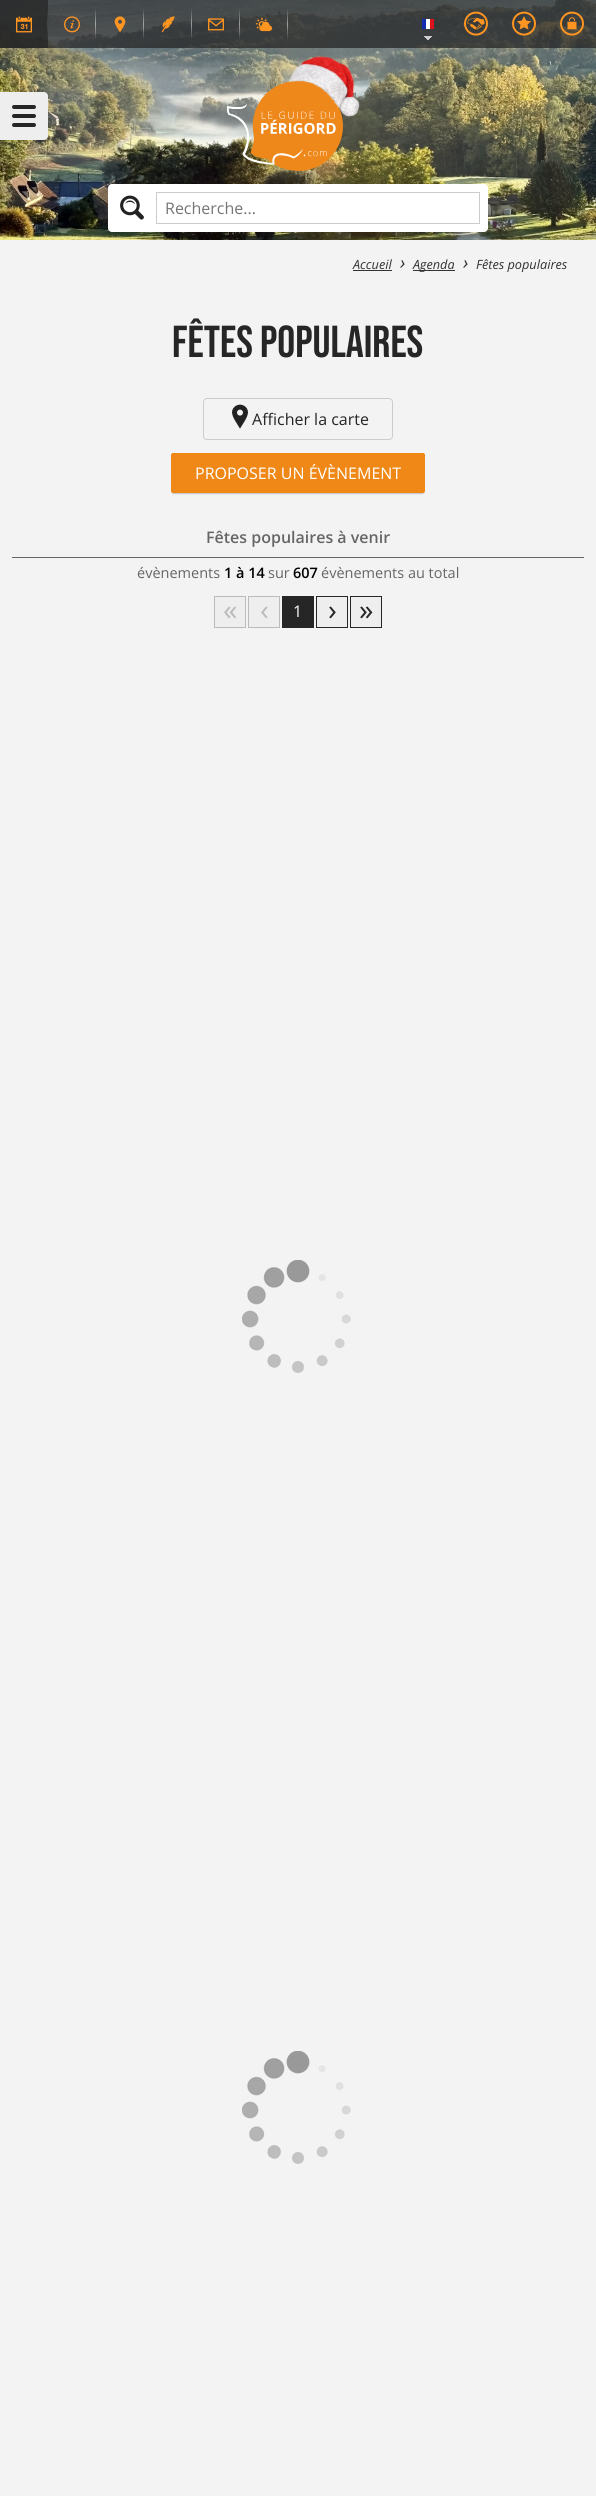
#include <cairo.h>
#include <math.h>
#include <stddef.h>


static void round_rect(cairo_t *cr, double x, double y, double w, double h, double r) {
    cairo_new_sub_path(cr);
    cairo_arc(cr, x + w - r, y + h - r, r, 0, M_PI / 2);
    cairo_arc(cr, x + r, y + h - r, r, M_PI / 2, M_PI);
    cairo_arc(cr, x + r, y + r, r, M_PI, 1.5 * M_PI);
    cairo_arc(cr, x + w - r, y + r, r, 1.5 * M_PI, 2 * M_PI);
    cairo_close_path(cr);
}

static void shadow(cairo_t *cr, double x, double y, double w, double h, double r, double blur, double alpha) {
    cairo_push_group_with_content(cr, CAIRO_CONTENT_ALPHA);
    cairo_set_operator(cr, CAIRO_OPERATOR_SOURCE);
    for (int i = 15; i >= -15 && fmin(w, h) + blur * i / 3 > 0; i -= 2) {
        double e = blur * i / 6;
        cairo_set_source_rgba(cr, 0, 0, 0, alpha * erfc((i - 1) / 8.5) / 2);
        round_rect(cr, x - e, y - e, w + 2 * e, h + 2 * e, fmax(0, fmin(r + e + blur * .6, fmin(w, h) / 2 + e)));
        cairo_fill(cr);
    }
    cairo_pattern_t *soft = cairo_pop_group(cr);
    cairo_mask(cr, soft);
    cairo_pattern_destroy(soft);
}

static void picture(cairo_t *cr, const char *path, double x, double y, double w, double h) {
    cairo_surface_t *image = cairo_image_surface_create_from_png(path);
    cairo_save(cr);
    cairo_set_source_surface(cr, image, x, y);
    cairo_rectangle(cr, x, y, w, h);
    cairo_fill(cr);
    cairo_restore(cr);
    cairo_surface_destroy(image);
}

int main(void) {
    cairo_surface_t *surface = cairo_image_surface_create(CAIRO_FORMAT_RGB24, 596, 2496);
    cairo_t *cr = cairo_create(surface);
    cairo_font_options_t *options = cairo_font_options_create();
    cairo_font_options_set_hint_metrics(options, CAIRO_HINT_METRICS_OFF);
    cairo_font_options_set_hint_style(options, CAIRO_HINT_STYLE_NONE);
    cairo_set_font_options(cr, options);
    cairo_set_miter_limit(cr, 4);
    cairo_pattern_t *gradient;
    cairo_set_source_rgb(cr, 0.953, 0.953, 0.953);
    cairo_paint(cr);
    picture(cr, "img1.png", 0, 0, 596, 240);
    cairo_set_source_rgba(cr, 0.149, 0.149, 0.149, 0.75);
    cairo_rectangle(cr, 0, 0, 596, 48);
    cairo_fill(cr);
    gradient = cairo_pattern_create_linear(48, 8, 48, 40);
    cairo_pattern_add_color_stop_rgba(gradient, 0, 1, 1, 1, 0);
    cairo_pattern_add_color_stop_rgba(gradient, 0.5, 1, 1, 1, 0.5);
    cairo_pattern_add_color_stop_rgba(gradient, 1, 1, 1, 1, 0);
    cairo_set_source(cr, gradient);
    cairo_pattern_destroy(gradient);
    cairo_rectangle(cr, 47, 8, 1, 32);
    cairo_fill(cr);
    cairo_set_source_rgba(cr, 0.149, 0.149, 0.149, 0.75);
    cairo_rectangle(cr, 0, 0, 48, 48);
    cairo_fill(cr);
    picture(cr, "img2.png", 16, 16, 16, 17);
    picture(cr, "img3.png", 64, 16, 16, 17);
    gradient = cairo_pattern_create_linear(96, 8, 96, 40);
    cairo_pattern_add_color_stop_rgba(gradient, 0, 1, 1, 1, 0);
    cairo_pattern_add_color_stop_rgba(gradient, 0.5, 1, 1, 1, 0.5);
    cairo_pattern_add_color_stop_rgba(gradient, 1, 1, 1, 1, 0);
    cairo_set_source(cr, gradient);
    cairo_pattern_destroy(gradient);
    cairo_rectangle(cr, 95, 8, 1, 32);
    cairo_fill(cr);
    picture(cr, "img4.png", 114, 16, 12, 17);
    gradient = cairo_pattern_create_linear(144, 8, 144, 40);
    cairo_pattern_add_color_stop_rgba(gradient, 0, 1, 1, 1, 0);
    cairo_pattern_add_color_stop_rgba(gradient, 0.5, 1, 1, 1, 0.5);
    cairo_pattern_add_color_stop_rgba(gradient, 1, 1, 1, 1, 0);
    cairo_set_source(cr, gradient);
    cairo_pattern_destroy(gradient);
    cairo_rectangle(cr, 143, 8, 1, 32);
    cairo_fill(cr);
    picture(cr, "img5.png", 161, 16, 14, 17);
    gradient = cairo_pattern_create_linear(192, 8, 192, 40);
    cairo_pattern_add_color_stop_rgba(gradient, 0, 1, 1, 1, 0);
    cairo_pattern_add_color_stop_rgba(gradient, 0.5, 1, 1, 1, 0.5);
    cairo_pattern_add_color_stop_rgba(gradient, 1, 1, 1, 1, 0);
    cairo_set_source(cr, gradient);
    cairo_pattern_destroy(gradient);
    cairo_rectangle(cr, 191, 8, 1, 32);
    cairo_fill(cr);
    picture(cr, "img6.png", 208, 18, 16, 13);
    gradient = cairo_pattern_create_linear(240, 8, 240, 40);
    cairo_pattern_add_color_stop_rgba(gradient, 0, 1, 1, 1, 0);
    cairo_pattern_add_color_stop_rgba(gradient, 0.5, 1, 1, 1, 0.5);
    cairo_pattern_add_color_stop_rgba(gradient, 1, 1, 1, 1, 0);
    cairo_set_source(cr, gradient);
    cairo_pattern_destroy(gradient);
    cairo_rectangle(cr, 239, 8, 1, 32);
    cairo_fill(cr);
    picture(cr, "img7.png", 256, 17, 16, 15);
    gradient = cairo_pattern_create_linear(288, 8, 288, 40);
    cairo_pattern_add_color_stop_rgba(gradient, 0, 1, 1, 1, 0);
    cairo_pattern_add_color_stop_rgba(gradient, 0.5, 1, 1, 1, 0.5);
    cairo_pattern_add_color_stop_rgba(gradient, 1, 1, 1, 1, 0);
    cairo_set_source(cr, gradient);
    cairo_pattern_destroy(gradient);
    cairo_rectangle(cr, 287, 8, 1, 32);
    cairo_fill(cr);
    picture(cr, "img8.png", 424, 36, 8, 4);
    picture(cr, "img9.png", 422, 19, 12, 10);
    picture(cr, "img10.png", 464, 11, 24, 25);
    picture(cr, "img11.png", 512, 11, 24, 25);
    picture(cr, "img12.png", 560, 11, 24, 25);
    cairo_set_source_rgb(cr, 0.933, 0.933, 0.933);
    cairo_new_path(cr);
    cairo_move_to(cr, 0, 92);
    cairo_line_to(cr, 44, 92);
    cairo_curve_to(cr, 46, 92, 48, 94, 48, 96);
    cairo_line_to(cr, 48, 136);
    cairo_curve_to(cr, 48, 138, 46, 140, 44, 140);
    cairo_line_to(cr, 0, 140);
    cairo_close_path(cr);
    cairo_fill(cr);
    cairo_set_source_rgb(cr, 0.149, 0.149, 0.149);
    round_rect(cr, 12, 105, 24, 4, 2);
    cairo_fill(cr);
    round_rect(cr, 12, 114, 24, 4, 2);
    cairo_fill(cr);
    round_rect(cr, 12, 123, 24, 4, 2);
    cairo_fill(cr);
    picture(cr, "img13.png", 226, 56, 134, 115);
    cairo_set_source_rgb(cr, 1, 1, 1);
    round_rect(cr, 108, 184, 380, 48, 4);
    cairo_fill(cr);
    picture(cr, "img14.png", 120, 195, 24, 25);
    cairo_rectangle(cr, 156.5, 192.5, 323, 31);
    cairo_set_source_rgb(cr, 0.8, 0.8, 0.8);
    cairo_set_line_width(cr, 1);
    cairo_stroke(cr);
    cairo_select_font_face(cr, "Open Sans", CAIRO_FONT_SLANT_NORMAL, CAIRO_FONT_WEIGHT_NORMAL);
    cairo_set_font_size(cr, 16);
    cairo_set_source_rgb(cr, 0.459, 0.459, 0.459);
    cairo_move_to(cr, 165, 214);
    cairo_show_text(cr, "Recherche...");
    cairo_select_font_face(cr, "Open Sans", CAIRO_FONT_SLANT_ITALIC, CAIRO_FONT_WEIGHT_NORMAL);
    cairo_set_font_size(cr, 12.75);
    cairo_set_source_rgb(cr, 0.2, 0.2, 0.2);
    cairo_move_to(cr, 353, 269);
    cairo_show_text(cr, "Accueil");
    cairo_rectangle(cr, 353, 270, 39, 1);
    cairo_fill(cr);
    cairo_set_font_size(cr, 19);
    cairo_move_to(cr, 400, 269);
    cairo_show_text(cr, "›");
    cairo_rectangle(cr, 413, 270, 42, 1);
    cairo_fill(cr);
    cairo_set_font_size(cr, 12.75);
    cairo_move_to(cr, 413, 269);
    cairo_show_text(cr, "Agenda");
    cairo_set_font_size(cr, 19);
    cairo_move_to(cr, 463, 269);
    cairo_show_text(cr, "›");
    cairo_set_font_size(cr, 12.75);
    cairo_move_to(cr, 476, 269);
    cairo_show_text(cr, "Fêtes populaires");
    cairo_select_font_face(cr, "Bebas Neue", CAIRO_FONT_SLANT_NORMAL, CAIRO_FONT_WEIGHT_NORMAL);
    cairo_set_font_size(cr, 44.75);
    cairo_set_source_rgb(cr, 0.149, 0.149, 0.149);
    cairo_move_to(cr, 172, 357);
    cairo_show_text(cr, "Fêtes populaires");
    round_rect(cr, 203.5, 398.5, 189, 41, 3.5);
    cairo_set_source_rgb(cr, 0.8, 0.8, 0.8);
    cairo_stroke(cr);
    picture(cr, "img15.png", 232, 404, 16, 25);
    cairo_select_font_face(cr, "Open Sans", CAIRO_FONT_SLANT_NORMAL, CAIRO_FONT_WEIGHT_NORMAL);
    cairo_set_font_size(cr, 16);
    cairo_set_source_rgb(cr, 0.149, 0.149, 0.149);
    cairo_move_to(cr, 252, 425);
    cairo_show_text(cr, "Afficher la carte");
    cairo_set_source_rgb(cr, 0, 0, 0);
    shadow(cr, 173, 457, 250, 36, 0, 1, 0.5);
    cairo_set_source_rgb(cr, 0.937, 0.533, 0.09);
    round_rect(cr, 171, 453, 254, 40, 2);
    cairo_fill(cr);
    cairo_set_source_rgb(cr, 1, 1, 1);
    cairo_move_to(cr, 195, 479);
    cairo_show_text(cr, "PROPOSER UN ÉVÈNEMENT");
    cairo_set_source_rgb(cr, 0.4, 0.4, 0.4);
    cairo_rectangle(cr, 12, 557, 572, 1);
    cairo_fill(cr);
    cairo_select_font_face(cr, "Open Sans SemiBold", CAIRO_FONT_SLANT_NORMAL, CAIRO_FONT_WEIGHT_NORMAL);
    cairo_move_to(cr, 206, 543);
    cairo_show_text(cr, "Fêtes populaires à venir");
    cairo_select_font_face(cr, "Open Sans", CAIRO_FONT_SLANT_NORMAL, CAIRO_FONT_WEIGHT_NORMAL);
    cairo_set_font_size(cr, 14.5);
    cairo_move_to(cr, 137, 578);
    cairo_show_text(cr, "évènements");
    cairo_select_font_face(cr, "Open Sans SemiBold", CAIRO_FONT_SLANT_NORMAL, CAIRO_FONT_WEIGHT_NORMAL);
    cairo_set_source_rgb(cr, 0, 0, 0);
    cairo_move_to(cr, 224, 578);
    cairo_show_text(cr, "1 à 14");
    cairo_select_font_face(cr, "Open Sans", CAIRO_FONT_SLANT_NORMAL, CAIRO_FONT_WEIGHT_NORMAL);
    cairo_set_source_rgb(cr, 0.4, 0.4, 0.4);
    cairo_move_to(cr, 268, 578);
    cairo_show_text(cr, "sur");
    cairo_select_font_face(cr, "Open Sans SemiBold", CAIRO_FONT_SLANT_NORMAL, CAIRO_FONT_WEIGHT_NORMAL);
    cairo_set_source_rgb(cr, 0, 0, 0);
    cairo_move_to(cr, 293, 578);
    cairo_show_text(cr, "607");
    cairo_select_font_face(cr, "Open Sans", CAIRO_FONT_SLANT_NORMAL, CAIRO_FONT_WEIGHT_NORMAL);
    cairo_set_source_rgb(cr, 0.4, 0.4, 0.4);
    cairo_move_to(cr, 321, 578);
    cairo_show_text(cr, "évènements au total");
    cairo_set_source_rgb(cr, 0.933, 0.933, 0.933);
    cairo_rectangle(cr, 214.5, 596.5, 31, 31);
    cairo_fill_preserve(cr);
    cairo_set_source_rgb(cr, 0.733, 0.733, 0.733);
    cairo_stroke(cr);
    cairo_set_font_size(cr, 29);
    cairo_move_to(cr, 223, 620);
    cairo_show_text(cr, "«");
    cairo_set_source_rgb(cr, 0.933, 0.933, 0.933);
    cairo_rectangle(cr, 248.5, 596.5, 31, 31);
    cairo_fill_preserve(cr);
    cairo_set_source_rgb(cr, 0.733, 0.733, 0.733);
    cairo_stroke(cr);
    cairo_move_to(cr, 260, 620);
    cairo_show_text(cr, "‹");
    cairo_set_source_rgb(cr, 0.149, 0.149, 0.149);
    cairo_rectangle(cr, 282, 596, 32, 32);
    cairo_fill(cr);
    cairo_set_font_size(cr, 16);
    cairo_set_source_rgb(cr, 1, 1, 1);
    cairo_move_to(cr, 293, 617);
    cairo_show_text(cr, "1");
    cairo_set_source_rgb(cr, 0.933, 0.933, 0.933);
    cairo_rectangle(cr, 316.5, 596.5, 31, 31);
    cairo_fill_preserve(cr);
    cairo_set_source_rgb(cr, 0.149, 0.149, 0.149);
    cairo_stroke(cr);
    cairo_set_font_size(cr, 29);
    cairo_move_to(cr, 328, 620);
    cairo_show_text(cr, "›");
    cairo_set_source_rgb(cr, 0.933, 0.933, 0.933);
    cairo_rectangle(cr, 350.5, 596.5, 31, 31);
    cairo_fill_preserve(cr);
    cairo_set_source_rgb(cr, 0.149, 0.149, 0.149);
    cairo_stroke(cr);
    cairo_move_to(cr, 359, 620);
    cairo_show_text(cr, "»");
    picture(cr, "img16.png", 242, 1260, 109, 113);
    picture(cr, "img16.png", 242, 2051, 109, 113);
    cairo_surface_write_to_png(surface, "page.png");
    cairo_font_options_destroy(options);
    cairo_destroy(cr);
    cairo_surface_destroy(surface);
    return 0;
}
